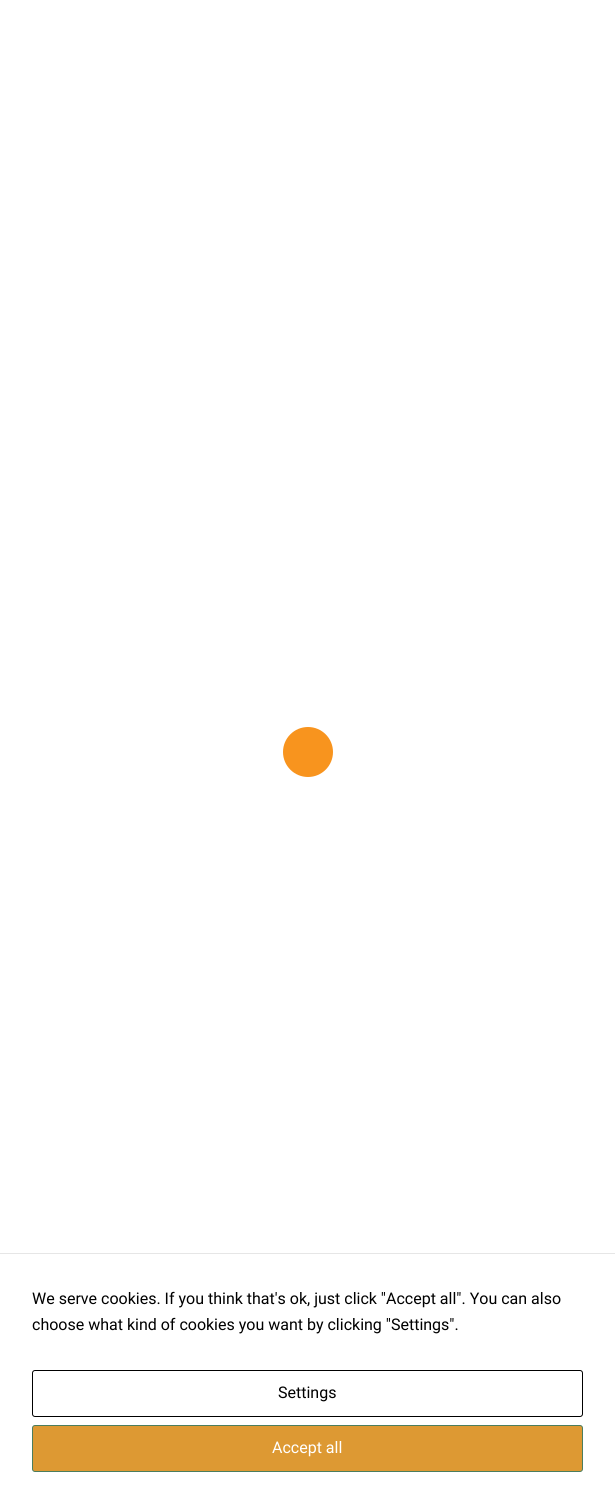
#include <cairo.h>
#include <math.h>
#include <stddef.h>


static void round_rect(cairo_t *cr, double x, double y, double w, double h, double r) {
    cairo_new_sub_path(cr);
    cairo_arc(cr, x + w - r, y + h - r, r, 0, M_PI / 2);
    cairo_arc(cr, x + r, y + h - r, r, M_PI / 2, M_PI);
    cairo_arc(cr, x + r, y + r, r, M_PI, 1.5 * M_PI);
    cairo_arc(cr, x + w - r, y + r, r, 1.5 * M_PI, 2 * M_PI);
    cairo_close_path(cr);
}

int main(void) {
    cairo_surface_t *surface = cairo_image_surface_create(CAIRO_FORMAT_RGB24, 615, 1504);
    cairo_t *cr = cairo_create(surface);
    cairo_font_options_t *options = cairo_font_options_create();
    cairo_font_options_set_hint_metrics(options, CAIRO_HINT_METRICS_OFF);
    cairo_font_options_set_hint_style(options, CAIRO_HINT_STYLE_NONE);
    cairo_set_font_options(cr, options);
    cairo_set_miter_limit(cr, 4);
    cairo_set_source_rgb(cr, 1, 1, 1);
    cairo_paint(cr);
    cairo_set_source_rgb(cr, 0.969, 0.58, 0.118);
    cairo_arc(cr, 308, 752, 25, 0, 2 * M_PI);
    cairo_fill(cr);
    cairo_set_source_rgb(cr, 0.902, 0.902, 0.902);
    cairo_rectangle(cr, 0, 1253, 615, 1);
    cairo_fill(cr);
    cairo_select_font_face(cr, "Roboto", CAIRO_FONT_SLANT_NORMAL, CAIRO_FONT_WEIGHT_NORMAL);
    cairo_set_font_size(cr, 16);
    cairo_set_source_rgb(cr, 0, 0, 0);
    cairo_move_to(cr, 32, 1304);
    cairo_show_text(cr, "We serve cookies. If you think that's ok, just click \"Accept all\". You can also");
    cairo_move_to(cr, 32, 1330);
    cairo_show_text(cr, "choose what kind of cookies you want by clicking \"Settings\".");
    round_rect(cr, 32.5, 1370.5, 550, 46, 2.5);
    cairo_set_line_width(cr, 1);
    cairo_stroke(cr);
    cairo_move_to(cr, 278, 1398);
    cairo_show_text(cr, "Settings");
    cairo_set_source_rgb(cr, 0.867, 0.6, 0.2);
    round_rect(cr, 32.5, 1425.5, 550, 46, 2.5);
    cairo_fill_preserve(cr);
    cairo_set_source_rgb(cr, 0.294, 0.49, 0.369);
    cairo_stroke(cr);
    cairo_set_source_rgb(cr, 1, 1, 1);
    cairo_move_to(cr, 272, 1453);
    cairo_show_text(cr, "Accept all");
    cairo_surface_write_to_png(surface, "page.png");
    cairo_font_options_destroy(options);
    cairo_destroy(cr);
    cairo_surface_destroy(surface);
    return 0;
}
